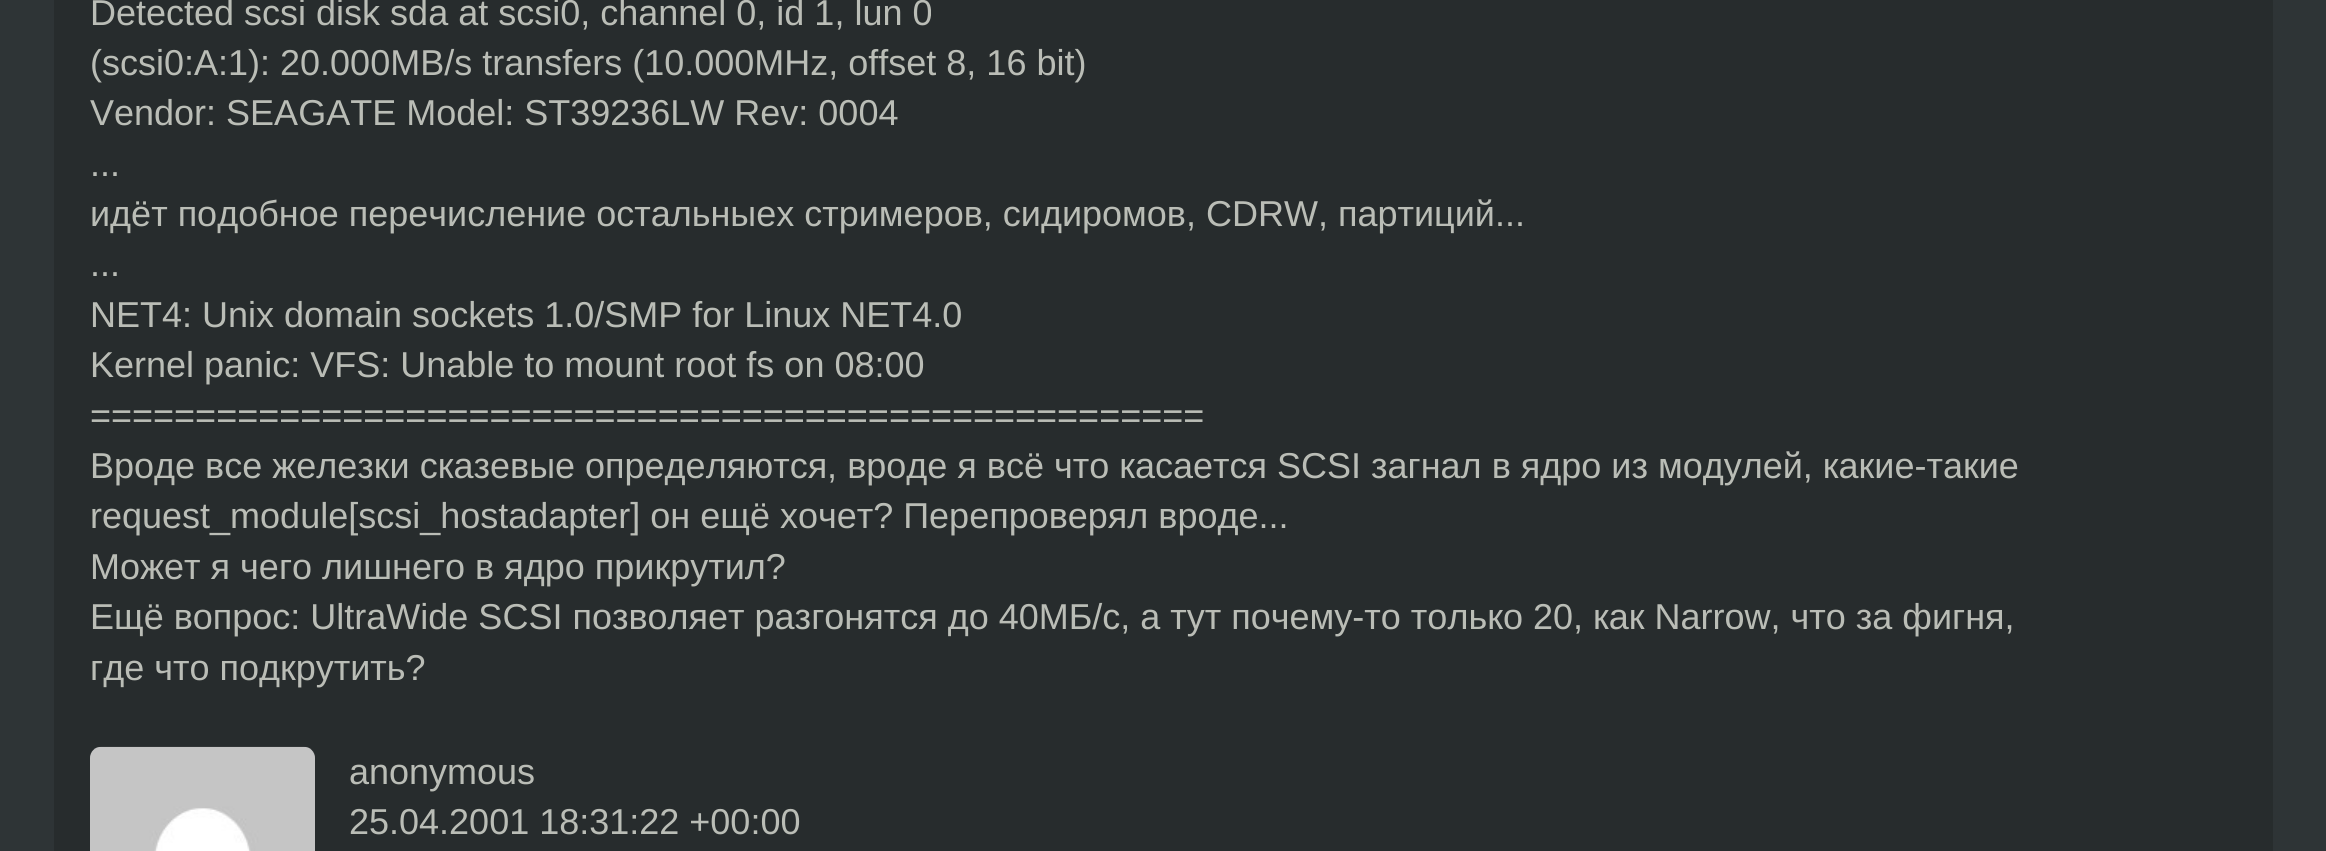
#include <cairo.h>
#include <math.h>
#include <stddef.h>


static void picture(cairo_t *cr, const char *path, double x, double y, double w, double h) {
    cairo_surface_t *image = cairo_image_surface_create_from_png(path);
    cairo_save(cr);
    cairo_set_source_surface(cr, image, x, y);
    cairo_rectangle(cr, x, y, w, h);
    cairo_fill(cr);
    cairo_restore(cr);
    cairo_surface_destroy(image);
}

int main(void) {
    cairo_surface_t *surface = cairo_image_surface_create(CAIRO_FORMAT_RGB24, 2326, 851);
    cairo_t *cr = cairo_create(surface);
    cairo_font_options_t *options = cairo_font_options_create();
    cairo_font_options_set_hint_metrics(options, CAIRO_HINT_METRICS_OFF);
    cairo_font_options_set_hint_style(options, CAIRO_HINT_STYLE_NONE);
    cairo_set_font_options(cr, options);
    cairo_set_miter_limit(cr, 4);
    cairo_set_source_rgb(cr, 0.18, 0.204, 0.212);
    cairo_paint(cr);
    cairo_set_source_rgb(cr, 0.153, 0.173, 0.176);
    cairo_rectangle(cr, 54, 0, 2219, 851);
    cairo_fill(cr);
    cairo_select_font_face(cr, "Liberation Sans", CAIRO_FONT_SLANT_NORMAL, CAIRO_FONT_WEIGHT_NORMAL);
    cairo_set_font_size(cr, 36);
    cairo_set_source_rgb(cr, 0.729, 0.741, 0.714);
    cairo_move_to(cr, 90, 25);
    cairo_show_text(cr, "Detected scsi disk sda at scsi0, channel 0, id 1, lun 0");
    cairo_move_to(cr, 90, 75);
    cairo_show_text(cr, "(scsi0:A:1): 20.000MB/s transfers (10.000MHz, offset 8, 16 bit)");
    cairo_move_to(cr, 90, 125);
    cairo_show_text(cr, "Vendor: SEAGATE Model: ST39236LW Rev: 0004");
    cairo_move_to(cr, 90, 176);
    cairo_show_text(cr, "...");
    cairo_move_to(cr, 90, 226);
    cairo_show_text(cr, "идёт подобное перечисление остальныех стримеров, сидиромов, CDRW, партиций...");
    cairo_move_to(cr, 90, 276);
    cairo_show_text(cr, "...");
    cairo_move_to(cr, 90, 327);
    cairo_show_text(cr, "NET4: Unix domain sockets 1.0/SMP for Linux NET4.0");
    cairo_move_to(cr, 90, 377);
    cairo_show_text(cr, "Kernel panic: VFS: Unable to mount root fs on 08:00");
    cairo_move_to(cr, 90, 428);
    cairo_show_text(cr, "=====================================================");
    cairo_move_to(cr, 90, 478);
    cairo_show_text(cr, "Вроде все железки сказевые определяются, вроде я всё что касается SCSI загнал в ядро из модулей, какие-такие");
    cairo_move_to(cr, 90, 528);
    cairo_show_text(cr, "request_module[scsi_hostadapter] он ещё хочет? Перепроверял вроде...");
    cairo_move_to(cr, 90, 579);
    cairo_show_text(cr, "Может я чего лишнего в ядро прикрутил?");
    cairo_move_to(cr, 90, 629);
    cairo_show_text(cr, "Ещё вопрос: UltraWide SCSI позволяет разгонятся до 40МБ/с, а тут почему-то только 20, как Narrow, что за фигня,");
    cairo_move_to(cr, 90, 680);
    cairo_show_text(cr, "где что подкрутить?");
    picture(cr, "img1.png", 90, 746, 225, 105);
    cairo_move_to(cr, 349, 784);
    cairo_show_text(cr, "anonymous");
    cairo_move_to(cr, 349, 834);
    cairo_show_text(cr, "25.04.2001 18:31:22 +00:00");
    cairo_surface_write_to_png(surface, "page.png");
    cairo_font_options_destroy(options);
    cairo_destroy(cr);
    cairo_surface_destroy(surface);
    return 0;
}
